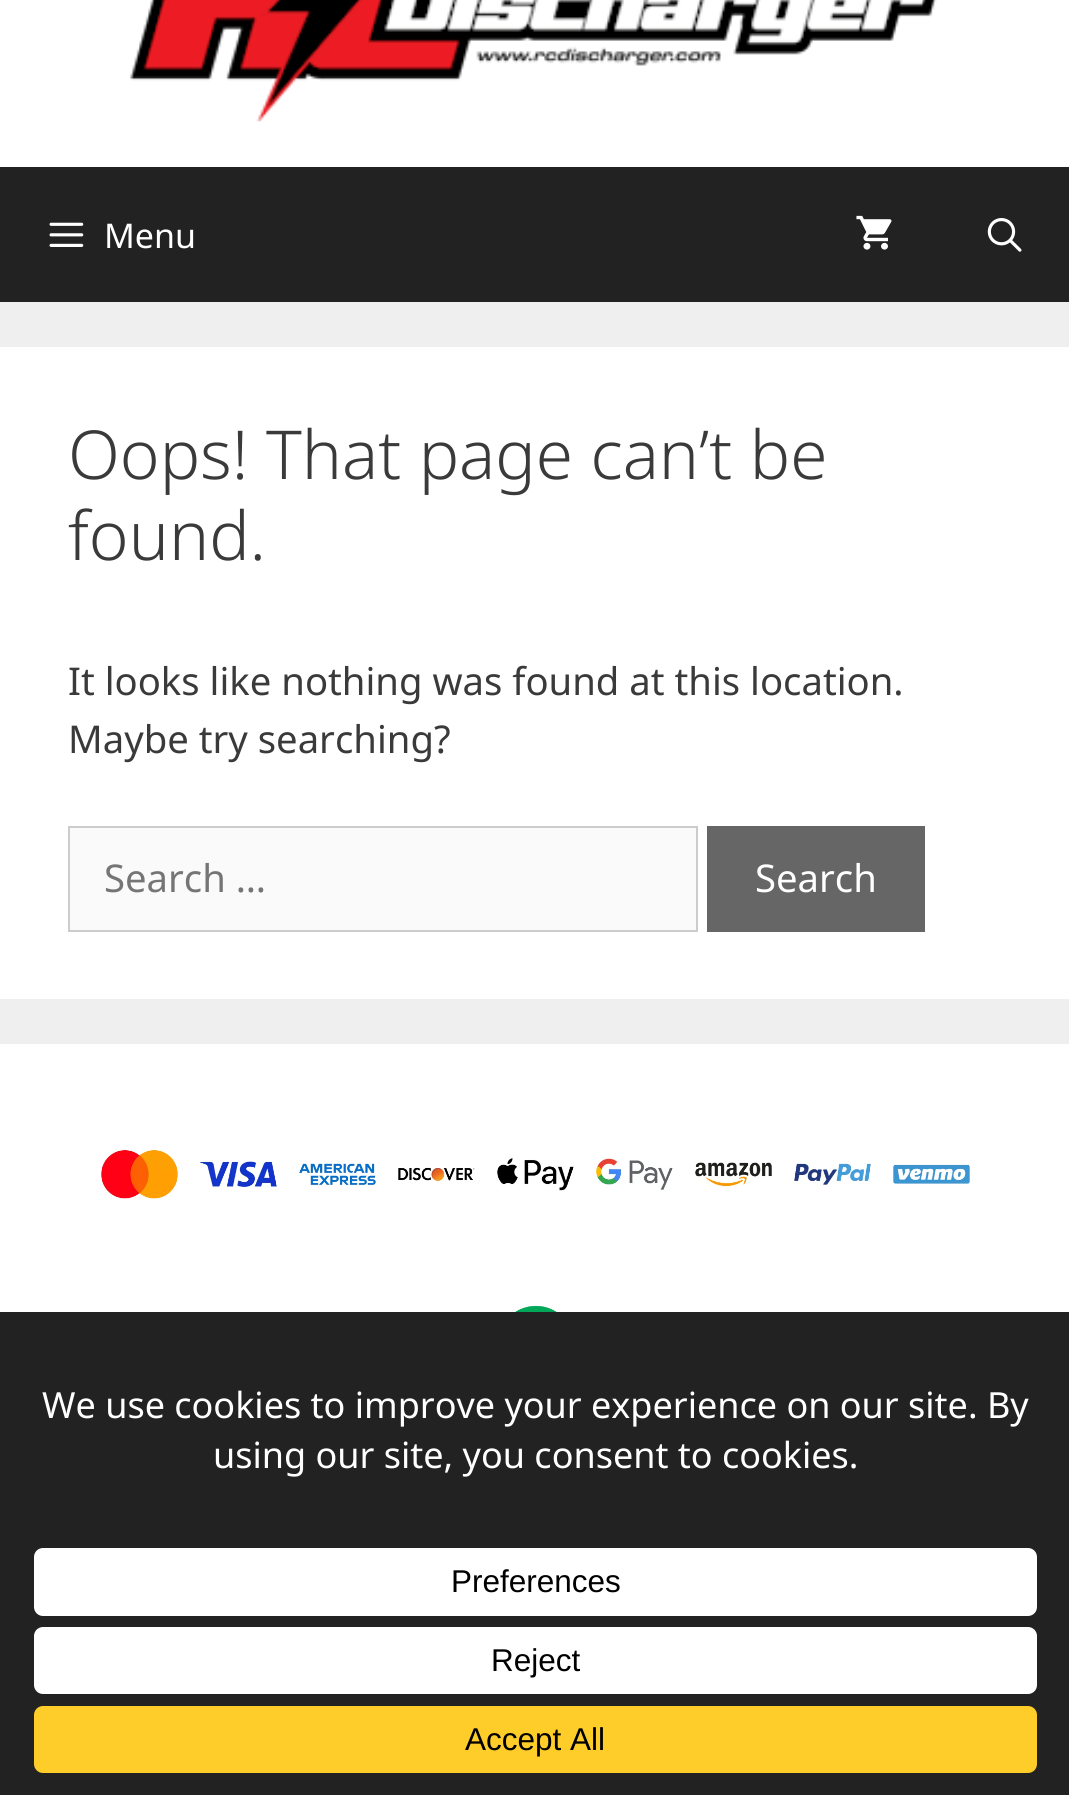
#include <cairo.h>
#include <math.h>
#include <stddef.h>


static void round_rect(cairo_t *cr, double x, double y, double w, double h, double r) {
    cairo_new_sub_path(cr);
    cairo_arc(cr, x + w - r, y + h - r, r, 0, M_PI / 2);
    cairo_arc(cr, x + r, y + h - r, r, M_PI / 2, M_PI);
    cairo_arc(cr, x + r, y + r, r, M_PI, 1.5 * M_PI);
    cairo_arc(cr, x + w - r, y + r, r, 1.5 * M_PI, 2 * M_PI);
    cairo_close_path(cr);
}

static void picture(cairo_t *cr, const char *path, double x, double y, double w, double h) {
    cairo_surface_t *image = cairo_image_surface_create_from_png(path);
    cairo_save(cr);
    cairo_set_source_surface(cr, image, x, y);
    cairo_rectangle(cr, x, y, w, h);
    cairo_fill(cr);
    cairo_restore(cr);
    cairo_surface_destroy(image);
}

int main(void) {
    cairo_surface_t *surface = cairo_image_surface_create(CAIRO_FORMAT_RGB24, 1069, 1795);
    cairo_t *cr = cairo_create(surface);
    cairo_font_options_t *options = cairo_font_options_create();
    cairo_font_options_set_hint_metrics(options, CAIRO_HINT_METRICS_OFF);
    cairo_font_options_set_hint_style(options, CAIRO_HINT_STYLE_NONE);
    cairo_set_font_options(cr, options);
    cairo_set_miter_limit(cr, 4);
    cairo_set_source_rgb(cr, 0.937, 0.937, 0.937);
    cairo_paint(cr);
    cairo_set_source_rgb(cr, 1, 1, 1);
    cairo_rectangle(cr, 0, 0, 1069, 167);
    cairo_fill(cr);
    picture(cr, "img1.png", 130, 0, 807, 122);
    cairo_set_source_rgb(cr, 0.133, 0.133, 0.133);
    cairo_rectangle(cr, 0, 167, 1069, 135);
    cairo_fill(cr);
    picture(cr, "img2.png", 49, 222, 35, 25);
    cairo_select_font_face(cr, "Noto Sans", CAIRO_FONT_SLANT_NORMAL, CAIRO_FONT_WEIGHT_NORMAL);
    cairo_set_font_size(cr, 34);
    cairo_set_source_rgb(cr, 1, 1, 1);
    cairo_move_to(cr, 104, 248);
    cairo_show_text(cr, "Menu");
    picture(cr, "img3.png", 856, 215, 36, 35);
    picture(cr, "img4.png", 987, 218, 35, 34);
    cairo_rectangle(cr, 0, 347, 1069, 652);
    cairo_fill(cr);
    cairo_select_font_face(cr, "Noto Sans Light", CAIRO_FONT_SLANT_NORMAL, CAIRO_FONT_WEIGHT_NORMAL);
    cairo_set_font_size(cr, 67.5);
    cairo_set_source_rgb(cr, 0.227, 0.227, 0.227);
    cairo_move_to(cr, 68, 479);
    cairo_show_text(cr, "Oops! That page can’t be");
    cairo_move_to(cr, 68, 560);
    cairo_show_text(cr, "found.");
    cairo_select_font_face(cr, "Noto Sans", CAIRO_FONT_SLANT_NORMAL, CAIRO_FONT_WEIGHT_NORMAL);
    cairo_set_font_size(cr, 38.25);
    cairo_move_to(cr, 68, 695);
    cairo_show_text(cr, "It looks like nothing was found at this location.");
    cairo_move_to(cr, 68, 753);
    cairo_show_text(cr, "Maybe try searching?");
    cairo_set_source_rgb(cr, 0.98, 0.98, 0.98);
    cairo_rectangle(cr, 69, 827, 628, 104);
    cairo_fill_preserve(cr);
    cairo_set_source_rgb(cr, 0.8, 0.8, 0.8);
    cairo_stroke(cr);
    cairo_set_source_rgb(cr, 0.459, 0.459, 0.459);
    cairo_move_to(cr, 104, 892);
    cairo_show_text(cr, "Search …");
    cairo_set_source_rgb(cr, 0.4, 0.4, 0.4);
    cairo_rectangle(cr, 707, 826, 218, 106);
    cairo_fill(cr);
    cairo_set_source_rgb(cr, 1, 1, 1);
    cairo_move_to(cr, 755, 892);
    cairo_show_text(cr, "Search");
    cairo_rectangle(cr, 0, 1044, 1069, 268);
    cairo_fill(cr);
    picture(cr, "img5.png", 101, 1149, 77, 50);
    picture(cr, "img6.png", 200, 1161, 77, 27);
    picture(cr, "img7.png", 299, 1163, 77, 24);
    picture(cr, "img8.png", 398, 1167, 77, 15);
    picture(cr, "img9.png", 497, 1158, 77, 33);
    picture(cr, "img10.png", 596, 1158, 77, 32);
    picture(cr, "img11.png", 695, 1162, 77, 25);
    picture(cr, "img12.png", 794, 1163, 77, 22);
    picture(cr, "img13.png", 893, 1164, 77, 20);
    picture(cr, "img14.png", 515, 1305, 42, 7);
    cairo_set_source_rgb(cr, 0.133, 0.133, 0.133);
    cairo_rectangle(cr, 0, 1312, 1069, 483);
    cairo_fill(cr);
    cairo_set_font_size(cr, 36);
    cairo_set_source_rgb(cr, 1, 1, 1);
    cairo_move_to(cr, 42, 1418);
    cairo_show_text(cr, "We use cookies to improve your experience on our site. By");
    cairo_move_to(cr, 213, 1468);
    cairo_show_text(cr, "using our site, you consent to cookies.");
    round_rect(cr, 34, 1548, 1003, 68, 9);
    cairo_fill(cr);
    cairo_select_font_face(cr, "Liberation Sans", CAIRO_FONT_SLANT_NORMAL, CAIRO_FONT_WEIGHT_NORMAL);
    cairo_set_font_size(cr, 31.5);
    cairo_set_source_rgb(cr, 0, 0, 0);
    cairo_move_to(cr, 451, 1592);
    cairo_show_text(cr, "Preferences");
    cairo_set_source_rgb(cr, 1, 1, 1);
    round_rect(cr, 34, 1627, 1003, 67, 9);
    cairo_fill(cr);
    cairo_set_source_rgb(cr, 0, 0, 0);
    cairo_move_to(cr, 491, 1671);
    cairo_show_text(cr, "Reject");
    cairo_set_source_rgb(cr, 1, 0.804, 0.165);
    round_rect(cr, 34, 1706, 1003, 67, 9);
    cairo_fill(cr);
    cairo_set_source_rgb(cr, 0, 0, 0);
    cairo_move_to(cr, 465, 1750);
    cairo_show_text(cr, "Accept All");
    cairo_surface_write_to_png(surface, "page.png");
    cairo_font_options_destroy(options);
    cairo_destroy(cr);
    cairo_surface_destroy(surface);
    return 0;
}
